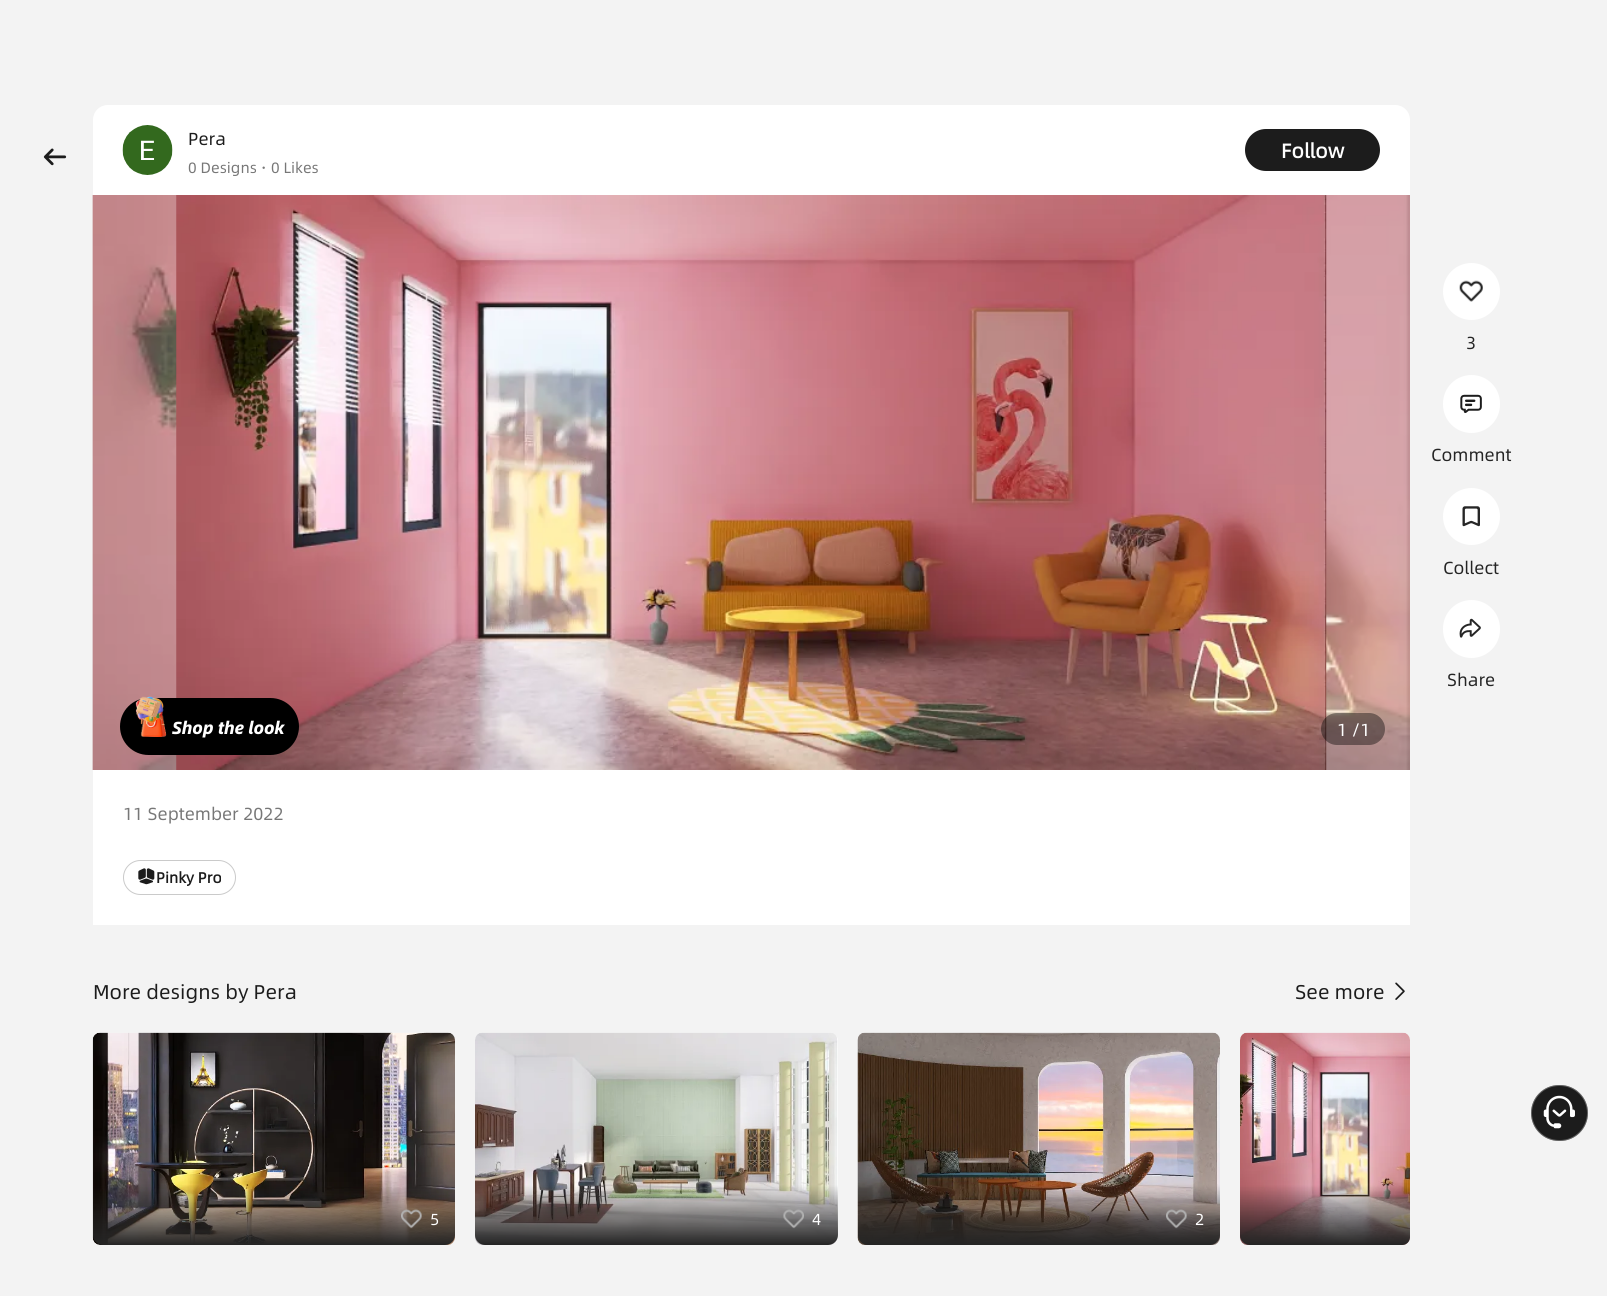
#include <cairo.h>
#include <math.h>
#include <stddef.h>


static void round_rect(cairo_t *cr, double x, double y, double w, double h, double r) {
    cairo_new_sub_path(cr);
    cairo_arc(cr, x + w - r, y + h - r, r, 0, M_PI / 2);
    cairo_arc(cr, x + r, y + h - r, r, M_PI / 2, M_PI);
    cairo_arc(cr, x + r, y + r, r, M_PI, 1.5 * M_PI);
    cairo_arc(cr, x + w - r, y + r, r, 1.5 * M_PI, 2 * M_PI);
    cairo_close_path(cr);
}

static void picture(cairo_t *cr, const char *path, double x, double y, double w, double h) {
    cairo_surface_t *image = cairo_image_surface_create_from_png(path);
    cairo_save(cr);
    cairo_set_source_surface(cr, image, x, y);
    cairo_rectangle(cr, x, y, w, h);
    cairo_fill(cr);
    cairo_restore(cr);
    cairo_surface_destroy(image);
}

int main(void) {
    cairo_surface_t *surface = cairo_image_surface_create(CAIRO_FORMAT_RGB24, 1607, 1296);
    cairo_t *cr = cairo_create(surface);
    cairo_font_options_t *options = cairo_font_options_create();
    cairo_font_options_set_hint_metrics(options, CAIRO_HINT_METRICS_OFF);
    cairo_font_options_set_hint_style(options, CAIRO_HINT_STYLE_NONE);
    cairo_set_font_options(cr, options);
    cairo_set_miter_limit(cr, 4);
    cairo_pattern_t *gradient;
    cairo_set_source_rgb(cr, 0.953, 0.953, 0.953);
    cairo_paint(cr);
    picture(cr, "img1.png", 43, 148, 24, 18);
    cairo_set_source_rgb(cr, 1, 1, 1);
    cairo_new_path(cr);
    cairo_move_to(cr, 108, 105);
    cairo_line_to(cr, 1395, 105);
    cairo_curve_to(cr, 1403.5, 105, 1410, 111.5, 1410, 120);
    cairo_line_to(cr, 1410, 925);
    cairo_line_to(cr, 93, 925);
    cairo_line_to(cr, 93, 120);
    cairo_curve_to(cr, 93, 111.5, 99.5, 105, 108, 105);
    cairo_close_path(cr);
    cairo_fill(cr);
    picture(cr, "img2.png", 122, 125, 51, 50);
    cairo_select_font_face(cr, "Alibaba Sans", CAIRO_FONT_SLANT_NORMAL, CAIRO_FONT_WEIGHT_NORMAL);
    cairo_set_font_size(cr, 17.5);
    cairo_set_source_rgb(cr, 0.11, 0.11, 0.11);
    cairo_move_to(cr, 188, 145);
    cairo_show_text(cr, "Pera");
    cairo_set_font_size(cr, 15);
    cairo_set_source_rgb(cr, 0.467, 0.467, 0.467);
    cairo_move_to(cr, 188, 173);
    cairo_show_text(cr, "0 Designs");
    cairo_select_font_face(cr, "WenQuanYi Zen Hei Medium", CAIRO_FONT_SLANT_NORMAL, CAIRO_FONT_WEIGHT_NORMAL);
    cairo_move_to(cr, 256, 173);
    cairo_show_text(cr, "・");
    cairo_select_font_face(cr, "Alibaba Sans", CAIRO_FONT_SLANT_NORMAL, CAIRO_FONT_WEIGHT_NORMAL);
    cairo_move_to(cr, 271, 173);
    cairo_show_text(cr, "0 Likes");
    cairo_set_source_rgb(cr, 0.11, 0.11, 0.11);
    round_rect(cr, 1245, 129, 135, 42, 21);
    cairo_fill(cr);
    cairo_select_font_face(cr, "Alibaba Sans", CAIRO_FONT_SLANT_NORMAL, CAIRO_FONT_WEIGHT_BOLD);
    cairo_set_font_size(cr, 20);
    cairo_set_source_rgb(cr, 1, 1, 1);
    cairo_move_to(cr, 1281, 158);
    cairo_show_text(cr, "Follow");
    picture(cr, "img3.png", 92, 195, 1318, 575);
    picture(cr, "img11.png", 176, 195, 1151, 575);
    cairo_set_source_rgb(cr, 0, 0, 0);
    round_rect(cr, 120, 698, 179, 57, 28.5);
    cairo_fill(cr);
    picture(cr, "img5.png", 145, 696, 18, 14);
    picture(cr, "img12.png", 140, 714, 27, 23);
    picture(cr, "img7.png", 135, 698, 30, 27);
    picture(cr, "img10.png", 151, 699, 1, 1);
    picture(cr, "img8.png", 136, 698, 28, 26);
    picture(cr, "img6.png", 142, 697, 20, 25);
    picture(cr, "img9.png", 136, 699, 28, 21);
    picture(cr, "img4.png", 136, 696, 26, 24);
    cairo_select_font_face(cr, "Alibaba Sans Black", CAIRO_FONT_SLANT_ITALIC, CAIRO_FONT_WEIGHT_NORMAL);
    cairo_set_font_size(cr, 17.5);
    cairo_set_source_rgb(cr, 1, 1, 1);
    cairo_move_to(cr, 172, 734);
    cairo_show_text(cr, "Shop the look");
    cairo_set_source_rgba(cr, 0, 0, 0, 0.4);
    round_rect(cr, 1321, 713, 64, 32, 16);
    cairo_fill(cr);
    cairo_select_font_face(cr, "Alibaba Sans", CAIRO_FONT_SLANT_NORMAL, CAIRO_FONT_WEIGHT_NORMAL);
    cairo_set_source_rgb(cr, 1, 1, 1);
    cairo_move_to(cr, 1337, 736);
    cairo_show_text(cr, "1 /1");
    cairo_set_source_rgb(cr, 0.467, 0.467, 0.467);
    cairo_move_to(cr, 123, 820);
    cairo_show_text(cr, "11 September 2022");
    round_rect(cr, 123.5, 860.5, 112, 34, 17);
    cairo_set_source_rgb(cr, 0.792, 0.792, 0.792);
    cairo_set_line_width(cr, 1);
    cairo_stroke(cr);
    picture(cr, "img13.png", 138, 868, 17, 17);
    cairo_select_font_face(cr, "Alibaba Sans", CAIRO_FONT_SLANT_NORMAL, CAIRO_FONT_WEIGHT_BOLD);
    cairo_set_font_size(cr, 15);
    cairo_set_source_rgb(cr, 0.11, 0.11, 0.11);
    cairo_move_to(cr, 156, 883);
    cairo_show_text(cr, "Pinky Pro");
    cairo_select_font_face(cr, "Alibaba Sans", CAIRO_FONT_SLANT_NORMAL, CAIRO_FONT_WEIGHT_NORMAL);
    cairo_set_font_size(cr, 20);
    cairo_move_to(cr, 93, 999);
    cairo_show_text(cr, "More designs by Pera");
    cairo_move_to(cr, 1295, 999);
    cairo_show_text(cr, "See more");
    picture(cr, "img14.png", 1395, 982, 10, 18);
    picture(cr, "img15.png", 92, 1032, 363, 213);
    gradient = cairo_pattern_create_linear(274, 1185, 274, 1245);
    cairo_pattern_add_color_stop_rgba(gradient, 0, 0.141, 0.141, 0.141, 0);
    cairo_pattern_add_color_stop_rgba(gradient, 1, 0.141, 0.141, 0.141, 1);
    cairo_set_source(cr, gradient);
    cairo_pattern_destroy(gradient);
    cairo_new_path(cr);
    cairo_move_to(cr, 93, 1185);
    cairo_line_to(cr, 455, 1185);
    cairo_line_to(cr, 455, 1235);
    cairo_curve_to(cr, 455, 1240.5, 450.5, 1245, 445, 1245);
    cairo_line_to(cr, 103, 1245);
    cairo_curve_to(cr, 97.5, 1245, 93, 1240.5, 93, 1235);
    cairo_close_path(cr);
    cairo_fill(cr);
    picture(cr, "img16.png", 401, 1209, 21, 20);
    cairo_set_font_size(cr, 16);
    cairo_set_source_rgb(cr, 1, 1, 1);
    cairo_move_to(cr, 430, 1225);
    cairo_show_text(cr, "5");
    round_rect(cr, 475, 1033, 363, 212, 8);
    cairo_fill(cr);
    picture(cr, "img17.png", 475, 1032, 363, 213);
    gradient = cairo_pattern_create_linear(656, 1185, 656, 1245);
    cairo_pattern_add_color_stop_rgba(gradient, 0, 0.141, 0.141, 0.141, 0);
    cairo_pattern_add_color_stop_rgba(gradient, 1, 0.141, 0.141, 0.141, 1);
    cairo_set_source(cr, gradient);
    cairo_pattern_destroy(gradient);
    cairo_new_path(cr);
    cairo_move_to(cr, 475, 1185);
    cairo_line_to(cr, 838, 1185);
    cairo_line_to(cr, 838, 1235);
    cairo_curve_to(cr, 838, 1240.5, 833.5, 1245, 828, 1245);
    cairo_line_to(cr, 485, 1245);
    cairo_curve_to(cr, 479.5, 1245, 475, 1240.5, 475, 1235);
    cairo_close_path(cr);
    cairo_fill(cr);
    picture(cr, "img18.png", 783, 1209, 21, 20);
    cairo_set_source_rgb(cr, 1, 1, 1);
    cairo_move_to(cr, 812, 1225);
    cairo_show_text(cr, "4");
    picture(cr, "img19.png", 857, 1032, 363, 213);
    gradient = cairo_pattern_create_linear(1039, 1185, 1039, 1245);
    cairo_pattern_add_color_stop_rgba(gradient, 0, 0.141, 0.141, 0.141, 0);
    cairo_pattern_add_color_stop_rgba(gradient, 1, 0.141, 0.141, 0.141, 1);
    cairo_set_source(cr, gradient);
    cairo_pattern_destroy(gradient);
    cairo_new_path(cr);
    cairo_move_to(cr, 858, 1185);
    cairo_line_to(cr, 1220, 1185);
    cairo_line_to(cr, 1220, 1235);
    cairo_curve_to(cr, 1220, 1240.5, 1215.5, 1245, 1210, 1245);
    cairo_line_to(cr, 868, 1245);
    cairo_curve_to(cr, 862.5, 1245, 858, 1240.5, 858, 1235);
    cairo_close_path(cr);
    cairo_fill(cr);
    picture(cr, "img20.png", 1166, 1209, 21, 20);
    cairo_set_source_rgb(cr, 1, 1, 1);
    cairo_move_to(cr, 1195, 1225);
    cairo_show_text(cr, "2");
    picture(cr, "img21.png", 1240, 1032, 170, 213);
    gradient = cairo_pattern_create_linear(1421, 1185, 1421, 1245);
    cairo_pattern_add_color_stop_rgba(gradient, 0, 0.141, 0.141, 0.141, 0);
    cairo_pattern_add_color_stop_rgba(gradient, 1, 0.141, 0.141, 0.141, 1);
    cairo_set_source(cr, gradient);
    cairo_pattern_destroy(gradient);
    cairo_new_path(cr);
    cairo_move_to(cr, 1240, 1185);
    cairo_line_to(cr, 1410, 1185);
    cairo_line_to(cr, 1410, 1237);
    cairo_curve_to(cr, 1410, 1241.5, 1406.5, 1245, 1402, 1245);
    cairo_line_to(cr, 1250, 1245);
    cairo_curve_to(cr, 1244.5, 1245, 1240, 1240.5, 1240, 1235);
    cairo_close_path(cr);
    cairo_fill(cr);
    cairo_set_source_rgb(cr, 1, 1, 1);
    cairo_arc(cr, 1471.5, 291.5, 28.5, 0, 2 * M_PI);
    cairo_fill(cr);
    picture(cr, "img22.png", 1459, 280, 24, 22);
    cairo_set_font_size(cr, 17.5);
    cairo_set_source_rgb(cr, 0.141, 0.141, 0.141);
    cairo_move_to(cr, 1466, 349);
    cairo_show_text(cr, "3");
    cairo_set_source_rgb(cr, 1, 1, 1);
    round_rect(cr, 1443, 375, 57, 58, 28.5);
    cairo_fill(cr);
    picture(cr, "img23.png", 1460, 394, 22, 19);
    cairo_set_source_rgb(cr, 0.141, 0.141, 0.141);
    cairo_move_to(cr, 1431, 461);
    cairo_show_text(cr, "Comment");
    cairo_set_source_rgb(cr, 1, 1, 1);
    cairo_new_path(cr);
    cairo_arc(cr, 1471.5, 516.5, 28.5, 0, 2 * M_PI);
    cairo_fill(cr);
    picture(cr, "img24.png", 1462, 506, 18, 21);
    cairo_set_source_rgb(cr, 0.141, 0.141, 0.141);
    cairo_move_to(cr, 1443, 574);
    cairo_show_text(cr, "Collect");
    cairo_set_source_rgb(cr, 1, 1, 1);
    round_rect(cr, 1443, 600, 57, 58, 28.5);
    cairo_fill(cr);
    picture(cr, "img25.png", 1459, 618, 22, 20);
    cairo_set_source_rgb(cr, 0.141, 0.141, 0.141);
    cairo_move_to(cr, 1447, 686);
    cairo_show_text(cr, "Share");
    cairo_set_source_rgb(cr, 0.11, 0.11, 0.11);
    round_rect(cr, 1531, 1085, 57, 56, 28);
    cairo_fill(cr);
    round_rect(cr, 1531.5, 1085.5, 56, 55, 27.5);
    cairo_set_source_rgba(cr, 1, 1, 1, 0.3);
    cairo_stroke(cr);
    picture(cr, "img26.png", 1543, 1095, 32, 34);
    cairo_surface_write_to_png(surface, "page.png");
    cairo_font_options_destroy(options);
    cairo_destroy(cr);
    cairo_surface_destroy(surface);
    return 0;
}
